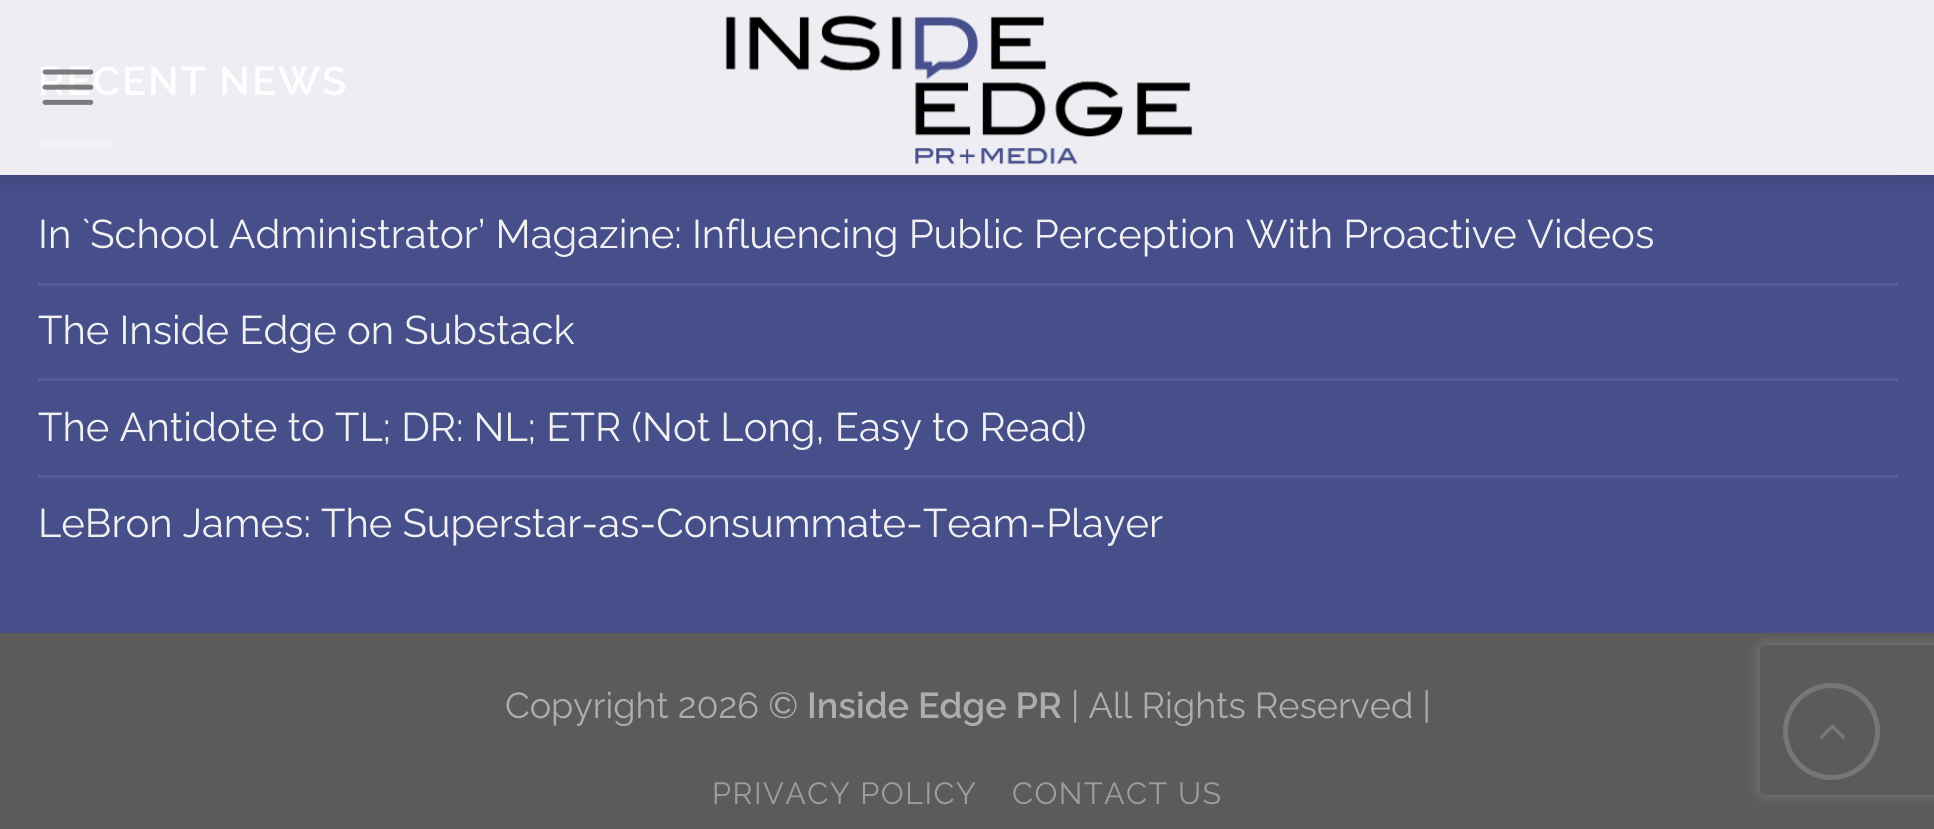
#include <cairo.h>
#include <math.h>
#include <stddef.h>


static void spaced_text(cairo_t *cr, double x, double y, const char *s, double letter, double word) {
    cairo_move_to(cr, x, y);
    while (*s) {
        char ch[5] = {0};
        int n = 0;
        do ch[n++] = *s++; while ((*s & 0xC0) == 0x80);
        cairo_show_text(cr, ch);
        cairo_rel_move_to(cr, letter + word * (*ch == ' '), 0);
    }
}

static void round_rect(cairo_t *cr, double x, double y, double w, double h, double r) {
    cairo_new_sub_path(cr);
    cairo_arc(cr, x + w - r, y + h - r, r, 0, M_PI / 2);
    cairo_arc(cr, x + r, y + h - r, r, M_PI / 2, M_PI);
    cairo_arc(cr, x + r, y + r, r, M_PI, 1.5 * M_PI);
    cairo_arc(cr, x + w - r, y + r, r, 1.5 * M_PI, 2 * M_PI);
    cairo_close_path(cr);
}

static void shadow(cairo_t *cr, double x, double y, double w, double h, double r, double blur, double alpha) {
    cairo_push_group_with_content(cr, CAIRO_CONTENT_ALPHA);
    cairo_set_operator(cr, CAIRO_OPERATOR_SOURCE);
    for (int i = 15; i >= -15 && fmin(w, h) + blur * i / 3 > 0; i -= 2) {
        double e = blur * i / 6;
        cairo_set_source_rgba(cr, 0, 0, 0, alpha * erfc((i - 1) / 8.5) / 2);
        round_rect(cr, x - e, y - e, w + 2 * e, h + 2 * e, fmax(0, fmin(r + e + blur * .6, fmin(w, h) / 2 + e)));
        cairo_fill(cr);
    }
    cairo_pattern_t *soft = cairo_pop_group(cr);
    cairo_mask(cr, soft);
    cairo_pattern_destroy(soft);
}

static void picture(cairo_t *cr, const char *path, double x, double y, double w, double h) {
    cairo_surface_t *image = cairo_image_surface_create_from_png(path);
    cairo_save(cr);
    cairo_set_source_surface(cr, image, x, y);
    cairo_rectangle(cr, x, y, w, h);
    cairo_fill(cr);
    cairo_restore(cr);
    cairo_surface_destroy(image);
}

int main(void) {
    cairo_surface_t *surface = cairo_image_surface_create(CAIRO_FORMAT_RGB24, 1934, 829);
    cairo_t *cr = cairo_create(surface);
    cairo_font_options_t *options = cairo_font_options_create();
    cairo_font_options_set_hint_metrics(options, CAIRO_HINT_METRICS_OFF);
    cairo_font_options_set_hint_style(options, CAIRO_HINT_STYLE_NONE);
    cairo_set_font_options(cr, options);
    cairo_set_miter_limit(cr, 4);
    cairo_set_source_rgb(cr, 0.278, 0.31, 0.545);
    cairo_paint(cr);
    cairo_set_source_rgb(cr, 0.929, 0.929, 0.953);
    cairo_rectangle(cr, 0, 0, 1934, 175);
    cairo_fill(cr);
    cairo_set_source_rgb(cr, 0.949, 0.953, 0.969);
    cairo_rectangle(cr, 38, 140, 75, 8);
    cairo_fill(cr);
    cairo_save(cr);
    cairo_rectangle(cr, 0, 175, 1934, 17);
    cairo_clip(cr);
    cairo_set_source_rgb(cr, 0, 0, 0);
    shadow(cr, 3, 3, 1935, 175, 0, 12.5, 0.15);
    cairo_restore(cr);
    cairo_select_font_face(cr, "Raleway SemiBold", CAIRO_FONT_SLANT_NORMAL, CAIRO_FONT_WEIGHT_NORMAL);
    cairo_set_font_size(cr, 40);
    cairo_set_source_rgb(cr, 0.996, 0.996, 0.996);
    spaced_text(cr, 38, 95, "RECENT NEWS", 2, 0);
    picture(cr, "img1.png", 42, 69, 52, 36);
    picture(cr, "img2.png", 725, 15, 468, 150);
    cairo_set_source_rgb(cr, 0.278, 0.302, 0.498);
    cairo_rectangle(cr, 38, 175, 1860, 3);
    cairo_fill(cr);
    cairo_select_font_face(cr, "Raleway", CAIRO_FONT_SLANT_NORMAL, CAIRO_FONT_WEIGHT_NORMAL);
    cairo_set_source_rgb(cr, 0.945, 0.945, 0.945);
    cairo_move_to(cr, 38, 248);
    cairo_show_text(cr, "In `School Administrator’ Magazine: Influencing Public Perception With Proactive Videos");
    cairo_set_source_rgb(cr, 0.337, 0.365, 0.58);
    cairo_rectangle(cr, 38, 283, 1860, 3);
    cairo_fill(cr);
    cairo_set_source_rgb(cr, 0.945, 0.945, 0.945);
    cairo_move_to(cr, 38, 344);
    cairo_show_text(cr, "The Inside Edge on Substack");
    cairo_set_source_rgb(cr, 0.337, 0.365, 0.58);
    cairo_rectangle(cr, 38, 378, 1860, 3);
    cairo_fill(cr);
    cairo_set_source_rgb(cr, 0.945, 0.945, 0.945);
    cairo_move_to(cr, 38, 441);
    cairo_show_text(cr, "The Antidote to TL; DR: NL; ETR (Not Long, Easy to Read)");
    cairo_set_source_rgb(cr, 0.337, 0.365, 0.58);
    cairo_rectangle(cr, 38, 475, 1860, 3);
    cairo_fill(cr);
    cairo_set_source_rgb(cr, 0.945, 0.945, 0.945);
    cairo_move_to(cr, 38, 537);
    cairo_show_text(cr, "LeBron James: The Superstar-as-Consummate-Team-Player");
    cairo_set_source_rgb(cr, 0.357, 0.357, 0.357);
    cairo_rectangle(cr, 0, 633, 1934, 196);
    cairo_fill(cr);
    cairo_set_font_size(cr, 36);
    cairo_set_source_rgb(cr, 0.678, 0.678, 0.678);
    cairo_move_to(cr, 505, 718);
    cairo_show_text(cr, "Copyright 2026 ©");
    cairo_select_font_face(cr, "Raleway SemiBold", CAIRO_FONT_SLANT_NORMAL, CAIRO_FONT_WEIGHT_NORMAL);
    cairo_move_to(cr, 807, 718);
    cairo_show_text(cr, "Inside Edge PR");
    cairo_select_font_face(cr, "Raleway", CAIRO_FONT_SLANT_NORMAL, CAIRO_FONT_WEIGHT_NORMAL);
    cairo_move_to(cr, 1071, 718);
    cairo_show_text(cr, "| All Rights Reserved |");
    cairo_set_font_size(cr, 30.5);
    cairo_set_source_rgb(cr, 0.616, 0.616, 0.616);
    spaced_text(cr, 712, 804, "PRIVACY POLICY", 1.5, 0);
    spaced_text(cr, 1012, 804, "CONTACT US", 1.5, 0);
    cairo_save(cr);
    cairo_set_fill_rule(cr, CAIRO_FILL_RULE_EVEN_ODD);
    cairo_new_path(cr);
    cairo_move_to(cr, 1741, 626);
    cairo_line_to(cr, 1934, 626);
    cairo_line_to(cr, 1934, 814);
    cairo_line_to(cr, 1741, 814);
    cairo_close_path(cr);
    cairo_move_to(cr, 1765, 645);
    cairo_line_to(cr, 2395, 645);
    cairo_curve_to(cr, 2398, 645, 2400, 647, 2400, 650);
    cairo_line_to(cr, 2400, 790);
    cairo_curve_to(cr, 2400, 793, 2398, 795, 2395, 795);
    cairo_line_to(cr, 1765, 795);
    cairo_curve_to(cr, 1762, 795, 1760, 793, 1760, 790);
    cairo_line_to(cr, 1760, 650);
    cairo_curve_to(cr, 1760, 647, 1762, 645, 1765, 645);
    cairo_close_path(cr);
    cairo_clip(cr);
    cairo_set_source_rgb(cr, 0.502, 0.502, 0.502);
    shadow(cr, 1760, 645, 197, 150, 5, 6, 1);
    cairo_restore(cr);
    cairo_arc(cr, 1831.5, 731.5, 46, 0, 2 * M_PI);
    cairo_set_source_rgb(cr, 0.467, 0.467, 0.467);
    cairo_set_line_width(cr, 5);
    cairo_stroke(cr);
    picture(cr, "img3.png", 1819, 724, 27, 16);
    cairo_surface_write_to_png(surface, "page.png");
    cairo_font_options_destroy(options);
    cairo_destroy(cr);
    cairo_surface_destroy(surface);
    return 0;
}
